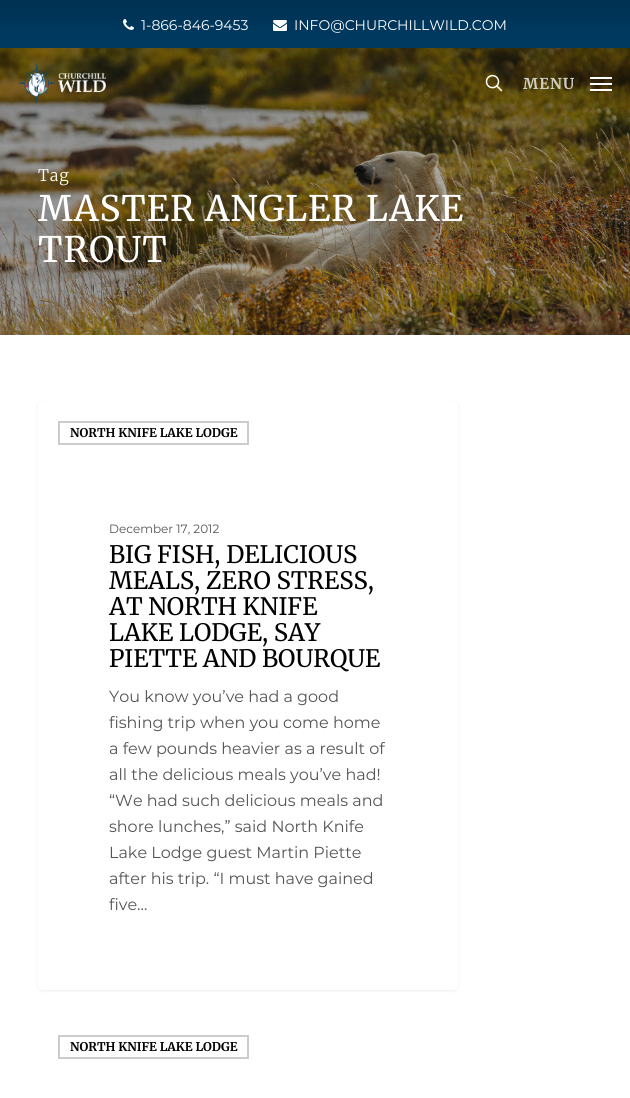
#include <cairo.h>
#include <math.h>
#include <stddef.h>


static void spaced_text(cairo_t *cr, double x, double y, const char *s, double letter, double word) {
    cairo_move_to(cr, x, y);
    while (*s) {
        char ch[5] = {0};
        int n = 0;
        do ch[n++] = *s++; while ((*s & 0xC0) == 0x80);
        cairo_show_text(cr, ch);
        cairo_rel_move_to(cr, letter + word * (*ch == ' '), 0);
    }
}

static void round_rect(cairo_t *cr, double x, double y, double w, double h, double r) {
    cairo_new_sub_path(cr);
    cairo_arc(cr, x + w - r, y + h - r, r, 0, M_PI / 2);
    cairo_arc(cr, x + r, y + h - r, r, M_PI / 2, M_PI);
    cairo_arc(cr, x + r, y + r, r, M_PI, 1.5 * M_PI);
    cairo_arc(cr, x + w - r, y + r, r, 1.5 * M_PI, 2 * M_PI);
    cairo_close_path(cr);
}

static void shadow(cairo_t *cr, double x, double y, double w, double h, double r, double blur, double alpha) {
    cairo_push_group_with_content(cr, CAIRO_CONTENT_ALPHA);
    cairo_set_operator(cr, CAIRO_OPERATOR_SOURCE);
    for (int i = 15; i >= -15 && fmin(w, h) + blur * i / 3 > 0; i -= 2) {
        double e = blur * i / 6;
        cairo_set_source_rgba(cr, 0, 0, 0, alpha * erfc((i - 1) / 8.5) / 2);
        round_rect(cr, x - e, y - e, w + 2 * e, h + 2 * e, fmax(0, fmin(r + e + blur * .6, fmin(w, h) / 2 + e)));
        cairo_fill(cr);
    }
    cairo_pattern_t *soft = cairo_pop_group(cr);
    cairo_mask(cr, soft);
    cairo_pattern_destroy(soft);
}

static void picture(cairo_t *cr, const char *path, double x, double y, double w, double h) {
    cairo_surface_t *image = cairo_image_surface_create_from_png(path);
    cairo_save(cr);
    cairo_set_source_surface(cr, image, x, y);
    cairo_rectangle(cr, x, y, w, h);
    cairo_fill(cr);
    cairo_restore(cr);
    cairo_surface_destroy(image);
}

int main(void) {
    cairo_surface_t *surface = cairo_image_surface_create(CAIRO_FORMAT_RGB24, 630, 1098);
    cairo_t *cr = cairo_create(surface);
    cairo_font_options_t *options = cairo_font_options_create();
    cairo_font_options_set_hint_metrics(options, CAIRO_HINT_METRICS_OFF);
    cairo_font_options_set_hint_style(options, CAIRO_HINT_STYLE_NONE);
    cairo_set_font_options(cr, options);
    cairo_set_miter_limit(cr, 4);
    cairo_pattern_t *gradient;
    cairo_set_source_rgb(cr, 1, 1, 1);
    cairo_paint(cr);
    cairo_set_source_rgb(cr, 0, 0.286, 0.482);
    cairo_rectangle(cr, 0, 0, 630, 48);
    cairo_fill(cr);
    picture(cr, "img5.png", 0, 48, 630, 287);
    gradient = cairo_pattern_create_linear(315, 138, 315, 0);
    cairo_pattern_add_color_stop_rgba(gradient, 0, 1, 1, 1, 0);
    cairo_pattern_add_color_stop_rgba(gradient, 0.01, 0, 0, 0, 0);
    cairo_pattern_add_color_stop_rgba(gradient, 0.16, 0, 0, 0, 0.04);
    cairo_pattern_add_color_stop_rgba(gradient, 0.75, 0, 0, 0, 0.23);
    cairo_pattern_add_color_stop_rgba(gradient, 1, 0, 0, 0, 0.33);
    cairo_set_source(cr, gradient);
    cairo_pattern_destroy(gradient);
    cairo_rectangle(cr, 0, 0, 630, 125);
    cairo_fill(cr);
    picture(cr, "img1.png", 123, 19, 11, 11);
    cairo_select_font_face(cr, "Montserrat", CAIRO_FONT_SLANT_NORMAL, CAIRO_FONT_WEIGHT_NORMAL);
    cairo_set_font_size(cr, 14);
    cairo_set_source_rgb(cr, 1, 1, 1);
    cairo_move_to(cr, 141, 30);
    cairo_show_text(cr, "1-866-846-9453");
    picture(cr, "img2.png", 273, 20, 14, 11);
    cairo_move_to(cr, 294, 30);
    cairo_show_text(cr, "INFO@CHURCHILLWILD.COM");
    picture(cr, "img3.png", 18, 63, 88, 40);
    picture(cr, "img4.png", 485, 74, 18, 18);
    cairo_select_font_face(cr, "Merriweather", CAIRO_FONT_SLANT_NORMAL, CAIRO_FONT_WEIGHT_BOLD);
    cairo_set_font_size(cr, 15);
    cairo_set_source_rgb(cr, 0.816, 0.804, 0.757);
    spaced_text(cr, 523, 89, "MENU", 1, 0);
    cairo_set_source_rgb(cr, 1, 1, 1);
    cairo_rectangle(cr, 590, 77, 22, 2);
    cairo_fill(cr);
    cairo_rectangle(cr, 590, 89, 22, 2);
    cairo_fill(cr);
    cairo_rectangle(cr, 590, 83, 22, 2);
    cairo_fill(cr);
    cairo_select_font_face(cr, "Merriweather Light", CAIRO_FONT_SLANT_NORMAL, CAIRO_FONT_WEIGHT_NORMAL);
    cairo_set_font_size(cr, 16);
    spaced_text(cr, 38, 181, "Tag", 1, 0);
    cairo_select_font_face(cr, "Merriweather", CAIRO_FONT_SLANT_NORMAL, CAIRO_FONT_WEIGHT_NORMAL);
    cairo_set_font_size(cr, 35.1);
    spaced_text(cr, 38, 221, "MASTER ANGLER LAKE", 1, 0);
    spaced_text(cr, 38, 262, "TROUT", 1, 0);
    cairo_set_source_rgb(cr, 0, 0, 0);
    shadow(cr, 38, 402, 420, 589, 4, 1.5, 0.08);
    cairo_set_source_rgb(cr, 1, 1, 1);
    round_rect(cr, 38, 401, 420, 589, 4);
    cairo_fill(cr);
    cairo_rectangle(cr, 59, 422, 189, 22);
    cairo_set_source_rgb(cr, 0.8, 0.8, 0.8);
    cairo_stroke(cr);
    cairo_select_font_face(cr, "Merriweather", CAIRO_FONT_SLANT_NORMAL, CAIRO_FONT_WEIGHT_BOLD);
    cairo_set_font_size(cr, 12);
    cairo_set_source_rgb(cr, 0, 0, 0);
    cairo_move_to(cr, 70, 437);
    cairo_show_text(cr, "NORTH KNIFE LAKE LODGE");
    cairo_select_font_face(cr, "Montserrat", CAIRO_FONT_SLANT_NORMAL, CAIRO_FONT_WEIGHT_NORMAL);
    cairo_set_source_rgb(cr, 0.333, 0.333, 0.333);
    cairo_move_to(cr, 109, 533);
    cairo_show_text(cr, "December 17, 2012");
    cairo_select_font_face(cr, "Merriweather", CAIRO_FONT_SLANT_NORMAL, CAIRO_FONT_WEIGHT_NORMAL);
    cairo_set_font_size(cr, 24);
    cairo_set_source_rgb(cr, 0, 0, 0);
    cairo_move_to(cr, 109, 563);
    cairo_show_text(cr, "BIG FISH, DELICIOUS");
    cairo_move_to(cr, 109, 589);
    cairo_show_text(cr, "MEALS, ZERO STRESS,");
    cairo_move_to(cr, 109, 615);
    cairo_show_text(cr, "AT NORTH KNIFE");
    cairo_move_to(cr, 109, 641);
    cairo_show_text(cr, "LAKE LODGE, SAY");
    cairo_move_to(cr, 109, 667);
    cairo_show_text(cr, "PIETTE AND BOURQUE");
    cairo_select_font_face(cr, "Montserrat", CAIRO_FONT_SLANT_NORMAL, CAIRO_FONT_WEIGHT_NORMAL);
    cairo_set_font_size(cr, 16);
    cairo_set_source_rgb(cr, 0.333, 0.333, 0.333);
    cairo_move_to(cr, 109, 702);
    cairo_show_text(cr, "You know you’ve had a good");
    cairo_move_to(cr, 109, 728);
    cairo_show_text(cr, "fishing trip when you come home");
    cairo_move_to(cr, 109, 754);
    cairo_show_text(cr, "a few pounds heavier as a result of");
    cairo_move_to(cr, 109, 780);
    cairo_show_text(cr, "all the delicious meals you’ve had!");
    cairo_move_to(cr, 109, 806);
    cairo_show_text(cr, "“We had such delicious meals and");
    cairo_move_to(cr, 109, 832);
    cairo_show_text(cr, "shore lunches,” said North Knife");
    cairo_move_to(cr, 109, 858);
    cairo_show_text(cr, "Lake Lodge guest Martin Piette");
    cairo_move_to(cr, 109, 884);
    cairo_show_text(cr, "after his trip. “I must have gained");
    cairo_move_to(cr, 109, 910);
    cairo_show_text(cr, "five…");
    cairo_rectangle(cr, 59, 1036, 189, 22);
    cairo_set_source_rgb(cr, 0.8, 0.8, 0.8);
    cairo_stroke(cr);
    cairo_select_font_face(cr, "Merriweather", CAIRO_FONT_SLANT_NORMAL, CAIRO_FONT_WEIGHT_BOLD);
    cairo_set_font_size(cr, 12);
    cairo_set_source_rgb(cr, 0, 0, 0);
    cairo_move_to(cr, 70, 1051);
    cairo_show_text(cr, "NORTH KNIFE LAKE LODGE");
    cairo_surface_write_to_png(surface, "page.png");
    cairo_font_options_destroy(options);
    cairo_destroy(cr);
    cairo_surface_destroy(surface);
    return 0;
}
